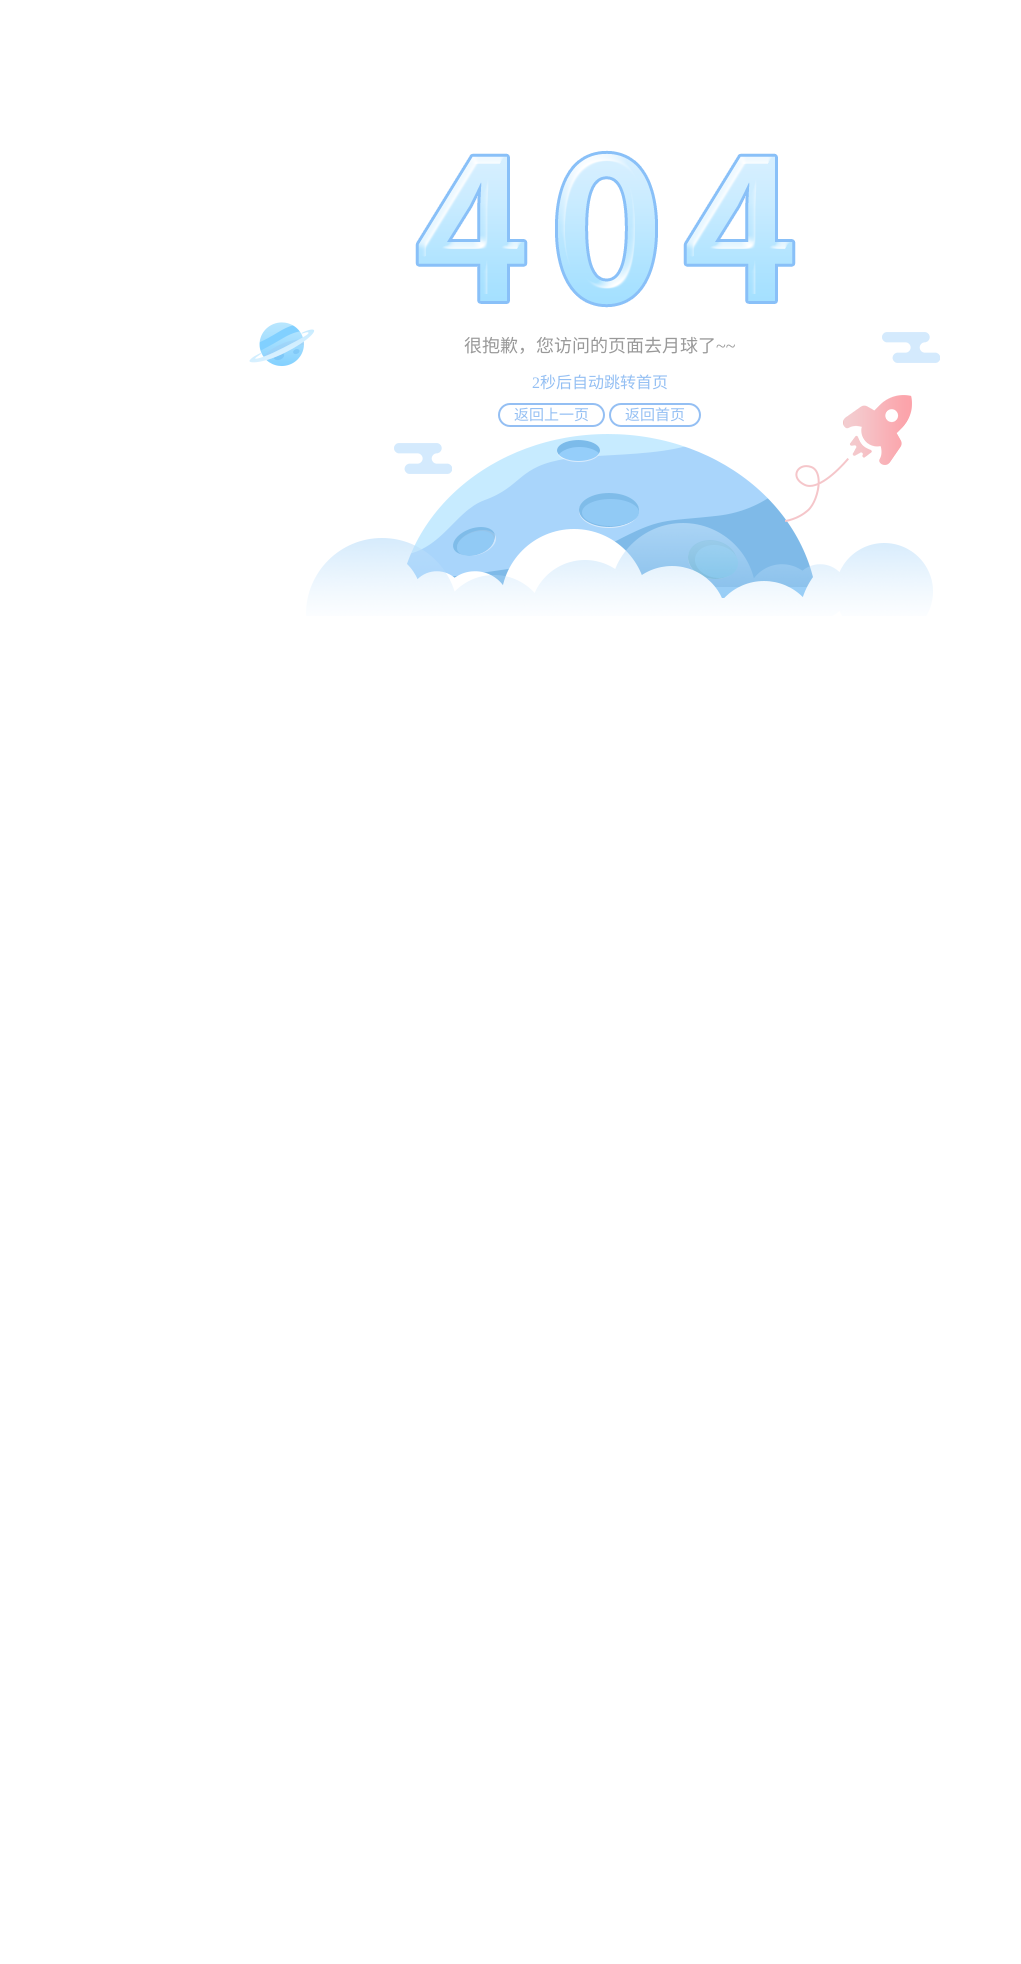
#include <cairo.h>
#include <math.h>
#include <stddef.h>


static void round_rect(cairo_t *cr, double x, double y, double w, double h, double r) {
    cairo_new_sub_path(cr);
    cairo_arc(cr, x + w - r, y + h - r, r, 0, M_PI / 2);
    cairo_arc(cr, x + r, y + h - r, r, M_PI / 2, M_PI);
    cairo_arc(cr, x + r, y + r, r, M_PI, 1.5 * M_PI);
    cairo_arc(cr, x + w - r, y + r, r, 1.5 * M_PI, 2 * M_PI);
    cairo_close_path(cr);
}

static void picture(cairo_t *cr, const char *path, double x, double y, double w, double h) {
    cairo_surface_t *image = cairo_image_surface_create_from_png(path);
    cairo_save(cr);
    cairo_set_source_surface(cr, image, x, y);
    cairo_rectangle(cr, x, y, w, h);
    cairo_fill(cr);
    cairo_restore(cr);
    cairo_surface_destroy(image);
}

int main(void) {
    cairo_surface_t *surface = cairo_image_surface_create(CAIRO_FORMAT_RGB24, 1021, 1964);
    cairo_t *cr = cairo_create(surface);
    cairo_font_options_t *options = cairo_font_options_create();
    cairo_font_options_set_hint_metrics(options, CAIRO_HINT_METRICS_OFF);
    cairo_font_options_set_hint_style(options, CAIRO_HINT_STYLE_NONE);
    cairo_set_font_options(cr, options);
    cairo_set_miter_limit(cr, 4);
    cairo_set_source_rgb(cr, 1, 1, 1);
    cairo_paint(cr);
    picture(cr, "img1.png", 249, 150, 691, 466);
    cairo_select_font_face(cr, "Noto Sans CJK SC", CAIRO_FONT_SLANT_NORMAL, CAIRO_FONT_WEIGHT_NORMAL);
    cairo_set_font_size(cr, 18);
    cairo_set_source_rgb(cr, 0.6, 0.6, 0.6);
    cairo_move_to(cr, 464, 352);
    cairo_show_text(cr, "很抱歉，您访问的页面去月球了");
    cairo_select_font_face(cr, "Liberation Serif", CAIRO_FONT_SLANT_NORMAL, CAIRO_FONT_WEIGHT_NORMAL);
    cairo_move_to(cr, 716, 352);
    cairo_show_text(cr, "~~");
    cairo_set_font_size(cr, 16);
    cairo_set_source_rgb(cr, 0.58, 0.749, 0.953);
    cairo_move_to(cr, 532, 388);
    cairo_show_text(cr, "2");
    cairo_select_font_face(cr, "Noto Sans CJK SC", CAIRO_FONT_SLANT_NORMAL, CAIRO_FONT_WEIGHT_NORMAL);
    cairo_move_to(cr, 540, 388);
    cairo_show_text(cr, "秒后自动跳转首页");
    round_rect(cr, 499, 404, 105, 22, 11);
    cairo_stroke(cr);
    cairo_set_font_size(cr, 15);
    cairo_move_to(cr, 514, 420);
    cairo_show_text(cr, "返回上一页");
    round_rect(cr, 610, 404, 90, 22, 11);
    cairo_stroke(cr);
    cairo_move_to(cr, 625, 420);
    cairo_show_text(cr, "返回首页");
    cairo_surface_write_to_png(surface, "page.png");
    cairo_font_options_destroy(options);
    cairo_destroy(cr);
    cairo_surface_destroy(surface);
    return 0;
}
